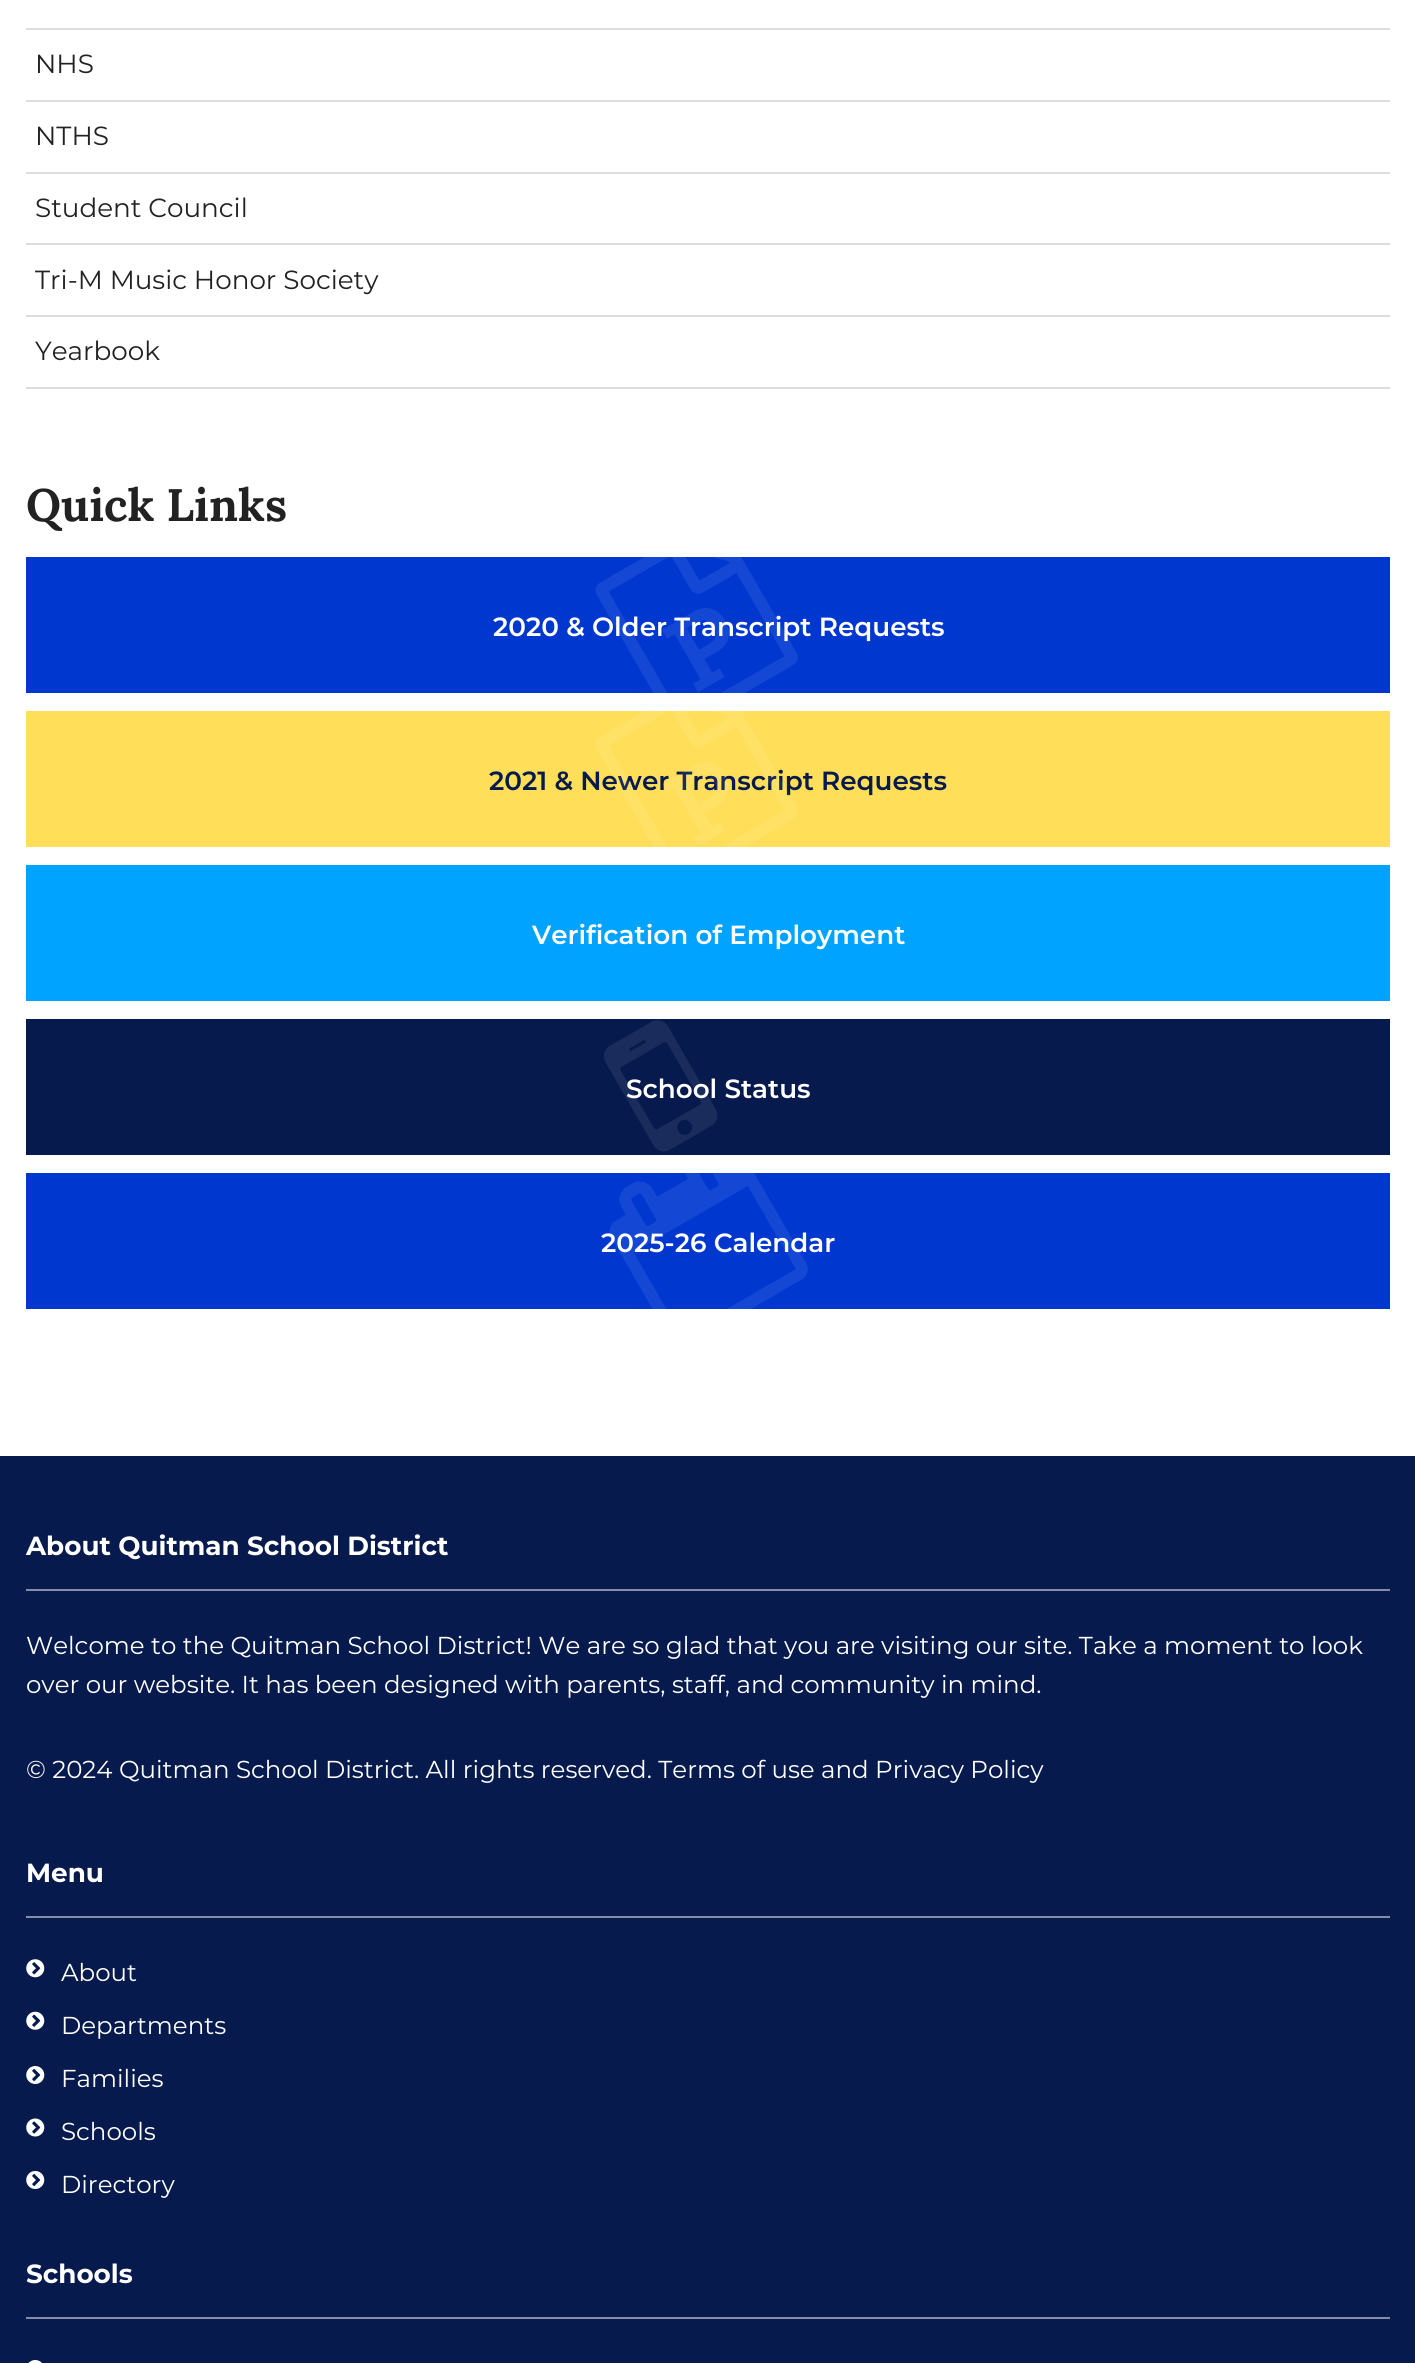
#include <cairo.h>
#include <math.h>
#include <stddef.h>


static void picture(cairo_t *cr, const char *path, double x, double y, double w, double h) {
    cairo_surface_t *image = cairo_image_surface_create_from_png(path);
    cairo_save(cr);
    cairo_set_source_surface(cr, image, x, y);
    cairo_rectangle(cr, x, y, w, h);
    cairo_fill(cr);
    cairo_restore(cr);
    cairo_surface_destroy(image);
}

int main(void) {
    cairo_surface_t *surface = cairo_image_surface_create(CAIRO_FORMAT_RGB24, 1415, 2363);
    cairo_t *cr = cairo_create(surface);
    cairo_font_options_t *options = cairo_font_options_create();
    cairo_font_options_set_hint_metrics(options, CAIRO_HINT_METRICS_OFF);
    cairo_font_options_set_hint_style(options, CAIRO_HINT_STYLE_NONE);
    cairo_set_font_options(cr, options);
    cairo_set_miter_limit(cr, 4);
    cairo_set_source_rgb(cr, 1, 1, 1);
    cairo_paint(cr);
    cairo_set_source_rgb(cr, 0.867, 0.867, 0.867);
    cairo_rectangle(cr, 26, 28, 1364, 2);
    cairo_fill(cr);
    cairo_rectangle(cr, 26, 100, 1364, 2);
    cairo_fill(cr);
    cairo_select_font_face(cr, "Montserrat", CAIRO_FONT_SLANT_NORMAL, CAIRO_FONT_WEIGHT_NORMAL);
    cairo_set_font_size(cr, 26.25);
    cairo_set_source_rgb(cr, 0.133, 0.133, 0.133);
    cairo_move_to(cr, 35, 73);
    cairo_show_text(cr, "NHS");
    cairo_set_source_rgb(cr, 0.867, 0.867, 0.867);
    cairo_rectangle(cr, 26, 172, 1364, 2);
    cairo_fill(cr);
    cairo_set_source_rgb(cr, 0.133, 0.133, 0.133);
    cairo_move_to(cr, 35, 145);
    cairo_show_text(cr, "NTHS");
    cairo_set_source_rgb(cr, 0.867, 0.867, 0.867);
    cairo_rectangle(cr, 26, 243, 1364, 2);
    cairo_fill(cr);
    cairo_set_source_rgb(cr, 0.133, 0.133, 0.133);
    cairo_move_to(cr, 35, 217);
    cairo_show_text(cr, "Student Council");
    cairo_set_source_rgb(cr, 0.867, 0.867, 0.867);
    cairo_rectangle(cr, 26, 315, 1364, 2);
    cairo_fill(cr);
    cairo_set_source_rgb(cr, 0.133, 0.133, 0.133);
    cairo_move_to(cr, 35, 289);
    cairo_show_text(cr, "Tri-M Music Honor Society");
    cairo_set_source_rgb(cr, 0.867, 0.867, 0.867);
    cairo_rectangle(cr, 26, 387, 1364, 2);
    cairo_fill(cr);
    cairo_set_source_rgb(cr, 0.133, 0.133, 0.133);
    cairo_move_to(cr, 35, 360);
    cairo_show_text(cr, "Yearbook");
    cairo_select_font_face(cr, "Lora", CAIRO_FONT_SLANT_NORMAL, CAIRO_FONT_WEIGHT_BOLD);
    cairo_set_font_size(cr, 45.5);
    cairo_move_to(cr, 26, 521);
    cairo_show_text(cr, "Quick Links");
    cairo_set_source_rgb(cr, 0, 0.216, 0.812);
    cairo_rectangle(cr, 26, 557, 1364, 136);
    cairo_fill(cr);
    cairo_select_font_face(cr, "Montserrat SemiBold", CAIRO_FONT_SLANT_NORMAL, CAIRO_FONT_WEIGHT_NORMAL);
    cairo_set_font_size(cr, 26.25);
    cairo_set_source_rgb(cr, 1, 1, 1);
    cairo_move_to(cr, 493, 636);
    cairo_show_text(cr, "2020 & Older Transcript Requests");
    picture(cr, "img1.png", 595, 557, 203, 136);
    cairo_set_source_rgb(cr, 1, 0.871, 0.349);
    cairo_rectangle(cr, 26, 711, 1364, 136);
    cairo_fill(cr);
    cairo_set_source_rgb(cr, 0.031, 0.102, 0.302);
    cairo_move_to(cr, 489, 790);
    cairo_show_text(cr, "2021 & Newer Transcript Requests");
    picture(cr, "img2.png", 595, 711, 203, 136);
    cairo_set_source_rgb(cr, 0, 0.639, 1);
    cairo_rectangle(cr, 26, 865, 1364, 136);
    cairo_fill(cr);
    cairo_set_source_rgb(cr, 1, 1, 1);
    cairo_move_to(cr, 532, 944);
    cairo_show_text(cr, "Verification of Employment");
    cairo_set_source_rgb(cr, 0.031, 0.102, 0.302);
    cairo_rectangle(cr, 26, 1019, 1364, 136);
    cairo_fill(cr);
    cairo_set_source_rgb(cr, 1, 1, 1);
    cairo_move_to(cr, 626, 1098);
    cairo_show_text(cr, "School Status");
    picture(cr, "img3.png", 604, 1020, 114, 132);
    cairo_set_source_rgb(cr, 0, 0.216, 0.812);
    cairo_rectangle(cr, 26, 1173, 1364, 136);
    cairo_fill(cr);
    cairo_set_source_rgb(cr, 1, 1, 1);
    cairo_move_to(cr, 601, 1252);
    cairo_show_text(cr, "2025-26 Calendar");
    picture(cr, "img4.png", 609, 1173, 199, 136);
    cairo_set_source_rgb(cr, 0.031, 0.102, 0.302);
    cairo_rectangle(cr, 0, 1456, 1415, 907);
    cairo_fill(cr);
    cairo_select_font_face(cr, "Montserrat", CAIRO_FONT_SLANT_NORMAL, CAIRO_FONT_WEIGHT_BOLD);
    cairo_set_source_rgb(cr, 1, 1, 1);
    cairo_move_to(cr, 26, 1555);
    cairo_show_text(cr, "About Quitman School District");
    cairo_set_source_rgb(cr, 0.518, 0.553, 0.651);
    cairo_rectangle(cr, 26, 1589, 1364, 2);
    cairo_fill(cr);
    cairo_select_font_face(cr, "Montserrat", CAIRO_FONT_SLANT_NORMAL, CAIRO_FONT_WEIGHT_NORMAL);
    cairo_set_font_size(cr, 24.5);
    cairo_set_source_rgb(cr, 1, 1, 1);
    cairo_move_to(cr, 26, 1654);
    cairo_show_text(cr, "Welcome to the Quitman School District! We are so glad that you are visiting our site. Take a moment to look");
    cairo_move_to(cr, 26, 1693);
    cairo_show_text(cr, "over our website. It has been designed with parents, staff, and community in mind.");
    cairo_move_to(cr, 26, 1778);
    cairo_show_text(cr, "© 2024 Quitman School District. All rights reserved. Terms of use and Privacy Policy");
    cairo_select_font_face(cr, "Montserrat", CAIRO_FONT_SLANT_NORMAL, CAIRO_FONT_WEIGHT_BOLD);
    cairo_set_font_size(cr, 26.25);
    cairo_move_to(cr, 26, 1882);
    cairo_show_text(cr, "Menu");
    cairo_set_source_rgb(cr, 0.518, 0.553, 0.651);
    cairo_rectangle(cr, 26, 1916, 1364, 2);
    cairo_fill(cr);
    picture(cr, "img5.png", 26, 1959, 19, 19);
    cairo_select_font_face(cr, "Montserrat", CAIRO_FONT_SLANT_NORMAL, CAIRO_FONT_WEIGHT_NORMAL);
    cairo_set_font_size(cr, 24.5);
    cairo_set_source_rgb(cr, 1, 1, 1);
    cairo_move_to(cr, 61, 1981);
    cairo_show_text(cr, "About");
    picture(cr, "img6.png", 26, 2011, 19, 19);
    cairo_move_to(cr, 61, 2034);
    cairo_show_text(cr, "Departments");
    picture(cr, "img7.png", 26, 2066, 19, 18);
    cairo_move_to(cr, 61, 2087);
    cairo_show_text(cr, "Families");
    picture(cr, "img8.png", 26, 2118, 19, 19);
    cairo_move_to(cr, 61, 2140);
    cairo_show_text(cr, "Schools");
    picture(cr, "img7.png", 26, 2171, 19, 18);
    cairo_move_to(cr, 61, 2193);
    cairo_show_text(cr, "Directory");
    cairo_select_font_face(cr, "Montserrat", CAIRO_FONT_SLANT_NORMAL, CAIRO_FONT_WEIGHT_BOLD);
    cairo_set_font_size(cr, 26.25);
    cairo_move_to(cr, 26, 2283);
    cairo_show_text(cr, "Schools");
    cairo_set_source_rgb(cr, 0.518, 0.553, 0.651);
    cairo_rectangle(cr, 26, 2317, 1364, 2);
    cairo_fill(cr);
    picture(cr, "img9.png", 28, 2360, 14, 3);
    cairo_surface_write_to_png(surface, "page.png");
    cairo_font_options_destroy(options);
    cairo_destroy(cr);
    cairo_surface_destroy(surface);
    return 0;
}
